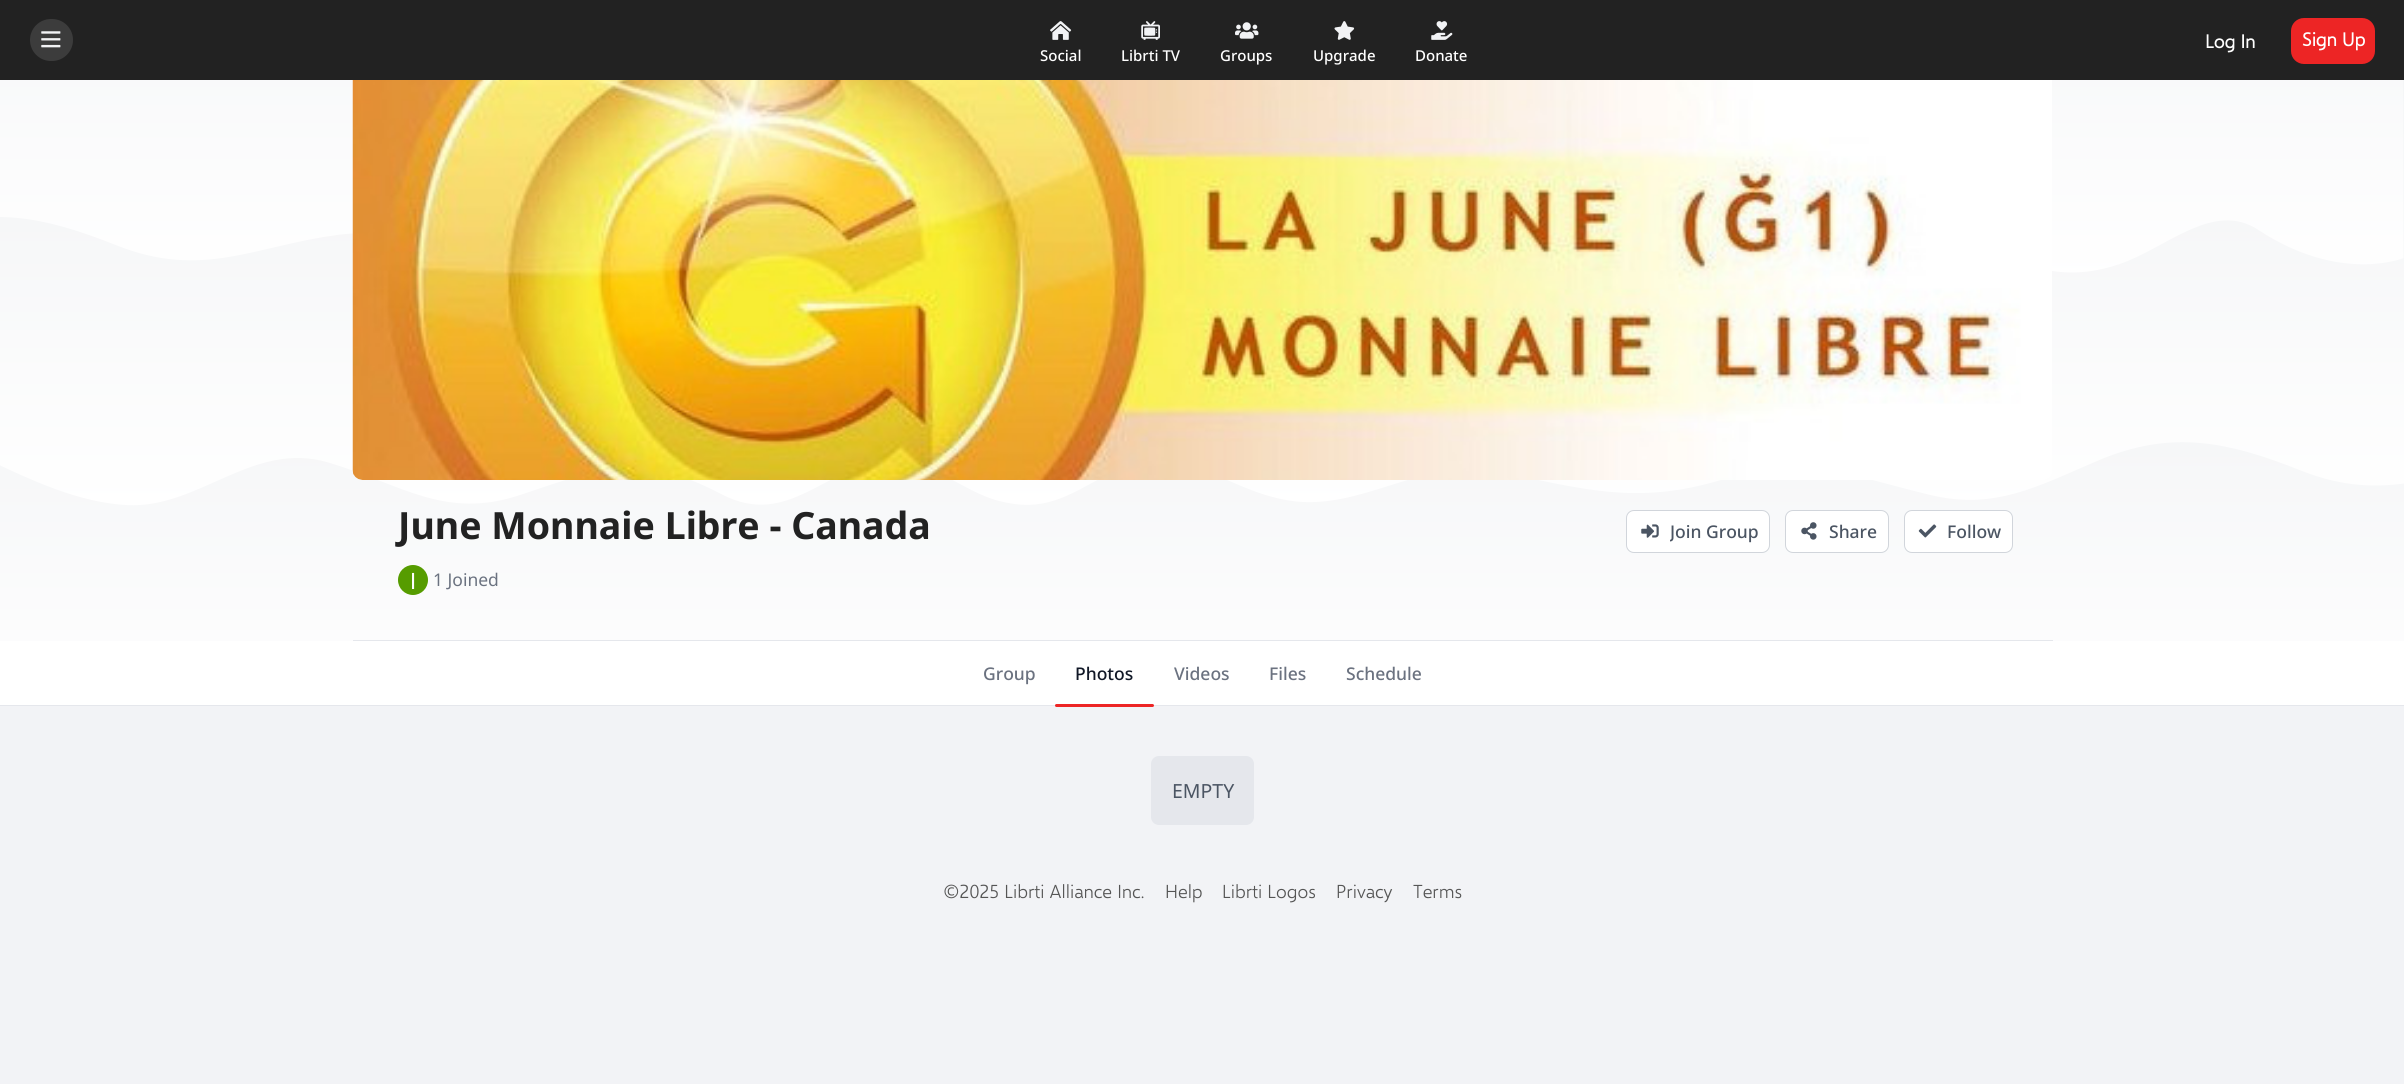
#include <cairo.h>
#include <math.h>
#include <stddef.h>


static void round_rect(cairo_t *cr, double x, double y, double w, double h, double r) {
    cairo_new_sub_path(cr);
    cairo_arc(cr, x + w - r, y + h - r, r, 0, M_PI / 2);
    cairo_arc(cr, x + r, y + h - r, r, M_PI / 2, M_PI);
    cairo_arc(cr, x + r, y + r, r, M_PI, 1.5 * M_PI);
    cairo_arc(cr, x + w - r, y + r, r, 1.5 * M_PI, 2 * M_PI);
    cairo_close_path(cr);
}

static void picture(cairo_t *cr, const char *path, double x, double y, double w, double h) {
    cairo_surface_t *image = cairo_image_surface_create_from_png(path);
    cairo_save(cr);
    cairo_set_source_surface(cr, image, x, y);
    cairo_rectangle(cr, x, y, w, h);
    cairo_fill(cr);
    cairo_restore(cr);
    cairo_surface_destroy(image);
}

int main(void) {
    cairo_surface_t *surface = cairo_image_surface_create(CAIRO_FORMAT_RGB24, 2404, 1084);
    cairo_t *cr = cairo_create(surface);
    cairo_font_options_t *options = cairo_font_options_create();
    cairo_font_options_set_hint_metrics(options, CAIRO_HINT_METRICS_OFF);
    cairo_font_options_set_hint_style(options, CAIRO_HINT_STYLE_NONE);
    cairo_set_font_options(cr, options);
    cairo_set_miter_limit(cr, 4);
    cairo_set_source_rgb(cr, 0.949, 0.953, 0.961);
    cairo_paint(cr);
    cairo_set_source_rgb(cr, 0.133, 0.133, 0.133);
    cairo_rectangle(cr, 0, 0, 2404, 80);
    cairo_fill(cr);
    cairo_set_source_rgb(cr, 0.235, 0.235, 0.235);
    round_rect(cr, 30, 19, 43, 42, 21);
    cairo_fill(cr);
    picture(cr, "img1.png", 41, 31, 20, 17);
    cairo_select_font_face(cr, "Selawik", CAIRO_FONT_SLANT_NORMAL, CAIRO_FONT_WEIGHT_BOLD);
    cairo_set_font_size(cr, 18.75);
    cairo_set_source_rgb(cr, 1, 1, 1);
    cairo_move_to(cr, 2205, 48);
    cairo_show_text(cr, "Log In");
    cairo_set_source_rgb(cr, 0.929, 0.145, 0.145);
    round_rect(cr, 2291, 18, 84, 46, 13);
    cairo_fill(cr);
    cairo_set_source_rgb(cr, 1, 1, 1);
    cairo_move_to(cr, 2302, 46);
    cairo_show_text(cr, "Sign Up");
    picture(cr, "img2.png", 1050, 21, 22, 19);
    cairo_select_font_face(cr, "Noto Sans Medium", CAIRO_FONT_SLANT_NORMAL, CAIRO_FONT_WEIGHT_NORMAL);
    cairo_set_font_size(cr, 15);
    cairo_move_to(cr, 1040, 61);
    cairo_show_text(cr, "Social");
    picture(cr, "img3.png", 1141, 21, 19, 19);
    cairo_move_to(cr, 1121, 61);
    cairo_show_text(cr, "Librti TV");
    picture(cr, "img4.png", 1235, 22, 24, 17);
    cairo_move_to(cr, 1220, 61);
    cairo_show_text(cr, "Groups");
    picture(cr, "img5.png", 1334, 21, 21, 19);
    cairo_move_to(cr, 1313, 61);
    cairo_show_text(cr, "Upgrade");
    picture(cr, "img6.png", 1431, 21, 22, 19);
    cairo_move_to(cr, 1415, 61);
    cairo_show_text(cr, "Donate");
    picture(cr, "img7.png", 0, 80, 2404, 561);
    picture(cr, "img8.png", 352, 80, 1700, 400);
    cairo_select_font_face(cr, "Noto Sans", CAIRO_FONT_SLANT_NORMAL, CAIRO_FONT_WEIGHT_BOLD);
    cairo_set_font_size(cr, 37.5);
    cairo_set_source_rgb(cr, 0.133, 0.133, 0.133);
    cairo_move_to(cr, 398, 539);
    cairo_show_text(cr, "June Monnaie Libre - Canada");
    cairo_set_source_rgb(cr, 0.337, 0.612, 0);
    cairo_new_path(cr);
    cairo_arc(cr, 413, 580, 15, 0, 2 * M_PI);
    cairo_fill(cr);
    cairo_select_font_face(cr, "Selawik", CAIRO_FONT_SLANT_NORMAL, CAIRO_FONT_WEIGHT_BOLD);
    cairo_set_font_size(cr, 22);
    cairo_set_source_rgb(cr, 1, 1, 1);
    cairo_move_to(cr, 410, 589);
    cairo_show_text(cr, "I");
    cairo_select_font_face(cr, "Noto Sans", CAIRO_FONT_SLANT_NORMAL, CAIRO_FONT_WEIGHT_NORMAL);
    cairo_set_font_size(cr, 17.5);
    cairo_set_source_rgb(cr, 0.42, 0.447, 0.502);
    cairo_move_to(cr, 433, 586);
    cairo_show_text(cr, "1 Joined");
    cairo_set_source_rgb(cr, 1, 1, 1);
    round_rect(cr, 1626.5, 510.5, 143, 42, 7.5);
    cairo_fill_preserve(cr);
    cairo_set_source_rgb(cr, 0.82, 0.835, 0.859);
    cairo_set_line_width(cr, 1);
    cairo_stroke(cr);
    picture(cr, "img9.png", 1641, 524, 18, 14);
    cairo_save(cr);
    cairo_rectangle(cr, 1670, 519, 89, 25);
    cairo_clip(cr);
    cairo_select_font_face(cr, "Noto Sans Medium", CAIRO_FONT_SLANT_NORMAL, CAIRO_FONT_WEIGHT_NORMAL);
    cairo_set_source_rgb(cr, 0.294, 0.333, 0.388);
    cairo_move_to(cr, 1670, 538);
    cairo_show_text(cr, "Join Group");
    cairo_restore(cr);
    cairo_set_source_rgb(cr, 1, 1, 1);
    round_rect(cr, 1785.5, 510.5, 103, 42, 7.5);
    cairo_fill_preserve(cr);
    cairo_set_source_rgb(cr, 0.82, 0.835, 0.859);
    cairo_stroke(cr);
    picture(cr, "img10.png", 1801, 522, 16, 18);
    cairo_select_font_face(cr, "Noto Sans Medium", CAIRO_FONT_SLANT_NORMAL, CAIRO_FONT_WEIGHT_NORMAL);
    cairo_set_source_rgb(cr, 0.294, 0.333, 0.388);
    cairo_move_to(cr, 1829, 538);
    cairo_show_text(cr, "Share");
    cairo_set_source_rgb(cr, 1, 1, 1);
    round_rect(cr, 1904.5, 510.5, 108, 42, 7.5);
    cairo_fill_preserve(cr);
    cairo_set_source_rgb(cr, 0.82, 0.835, 0.859);
    cairo_stroke(cr);
    picture(cr, "img11.png", 1918, 524, 19, 14);
    cairo_set_source_rgb(cr, 0.294, 0.333, 0.388);
    cairo_move_to(cr, 1947, 538);
    cairo_show_text(cr, "Follow");
    cairo_set_source_rgb(cr, 0.898, 0.906, 0.922);
    cairo_rectangle(cr, 353, 640, 1700, 1);
    cairo_fill(cr);
    cairo_set_source_rgb(cr, 1, 1, 1);
    cairo_rectangle(cr, 0, 641, 2404, 64);
    cairo_fill(cr);
    cairo_set_source_rgb(cr, 0.898, 0.906, 0.922);
    cairo_rectangle(cr, 0, 705, 2404, 1);
    cairo_fill(cr);
    cairo_set_source_rgb(cr, 0.42, 0.447, 0.502);
    cairo_move_to(cr, 983, 680);
    cairo_show_text(cr, "Group");
    cairo_set_source_rgb(cr, 0.067, 0.094, 0.153);
    cairo_move_to(cr, 1075, 680);
    cairo_show_text(cr, "Photos");
    cairo_set_source_rgb(cr, 0.929, 0.145, 0.145);
    round_rect(cr, 1055, 704, 99, 3, 1.5);
    cairo_fill(cr);
    cairo_set_source_rgb(cr, 0.42, 0.447, 0.502);
    cairo_move_to(cr, 1174, 680);
    cairo_show_text(cr, "Videos");
    cairo_move_to(cr, 1269, 680);
    cairo_show_text(cr, "Files");
    cairo_move_to(cr, 1346, 680);
    cairo_show_text(cr, "Schedule");
    cairo_set_source_rgb(cr, 0.898, 0.906, 0.922);
    round_rect(cr, 1151, 756, 103, 69, 8);
    cairo_fill(cr);
    cairo_select_font_face(cr, "Noto Sans", CAIRO_FONT_SLANT_NORMAL, CAIRO_FONT_WEIGHT_NORMAL);
    cairo_set_font_size(cr, 19.5);
    cairo_set_source_rgb(cr, 0.294, 0.333, 0.388);
    cairo_move_to(cr, 1172, 798);
    cairo_show_text(cr, "EMPTY");
    cairo_select_font_face(cr, "Selawik Light", CAIRO_FONT_SLANT_NORMAL, CAIRO_FONT_WEIGHT_NORMAL);
    cairo_set_font_size(cr, 18.75);
    cairo_set_source_rgb(cr, 0.333, 0.333, 0.333);
    cairo_move_to(cr, 943, 898);
    cairo_show_text(cr, "©2025 Librti Alliance Inc.");
    cairo_move_to(cr, 1165, 898);
    cairo_show_text(cr, "Help");
    cairo_move_to(cr, 1222, 898);
    cairo_show_text(cr, "Librti Logos");
    cairo_move_to(cr, 1336, 898);
    cairo_show_text(cr, "Privacy");
    cairo_move_to(cr, 1413, 898);
    cairo_show_text(cr, "Terms");
    cairo_surface_write_to_png(surface, "page.png");
    cairo_font_options_destroy(options);
    cairo_destroy(cr);
    cairo_surface_destroy(surface);
    return 0;
}
